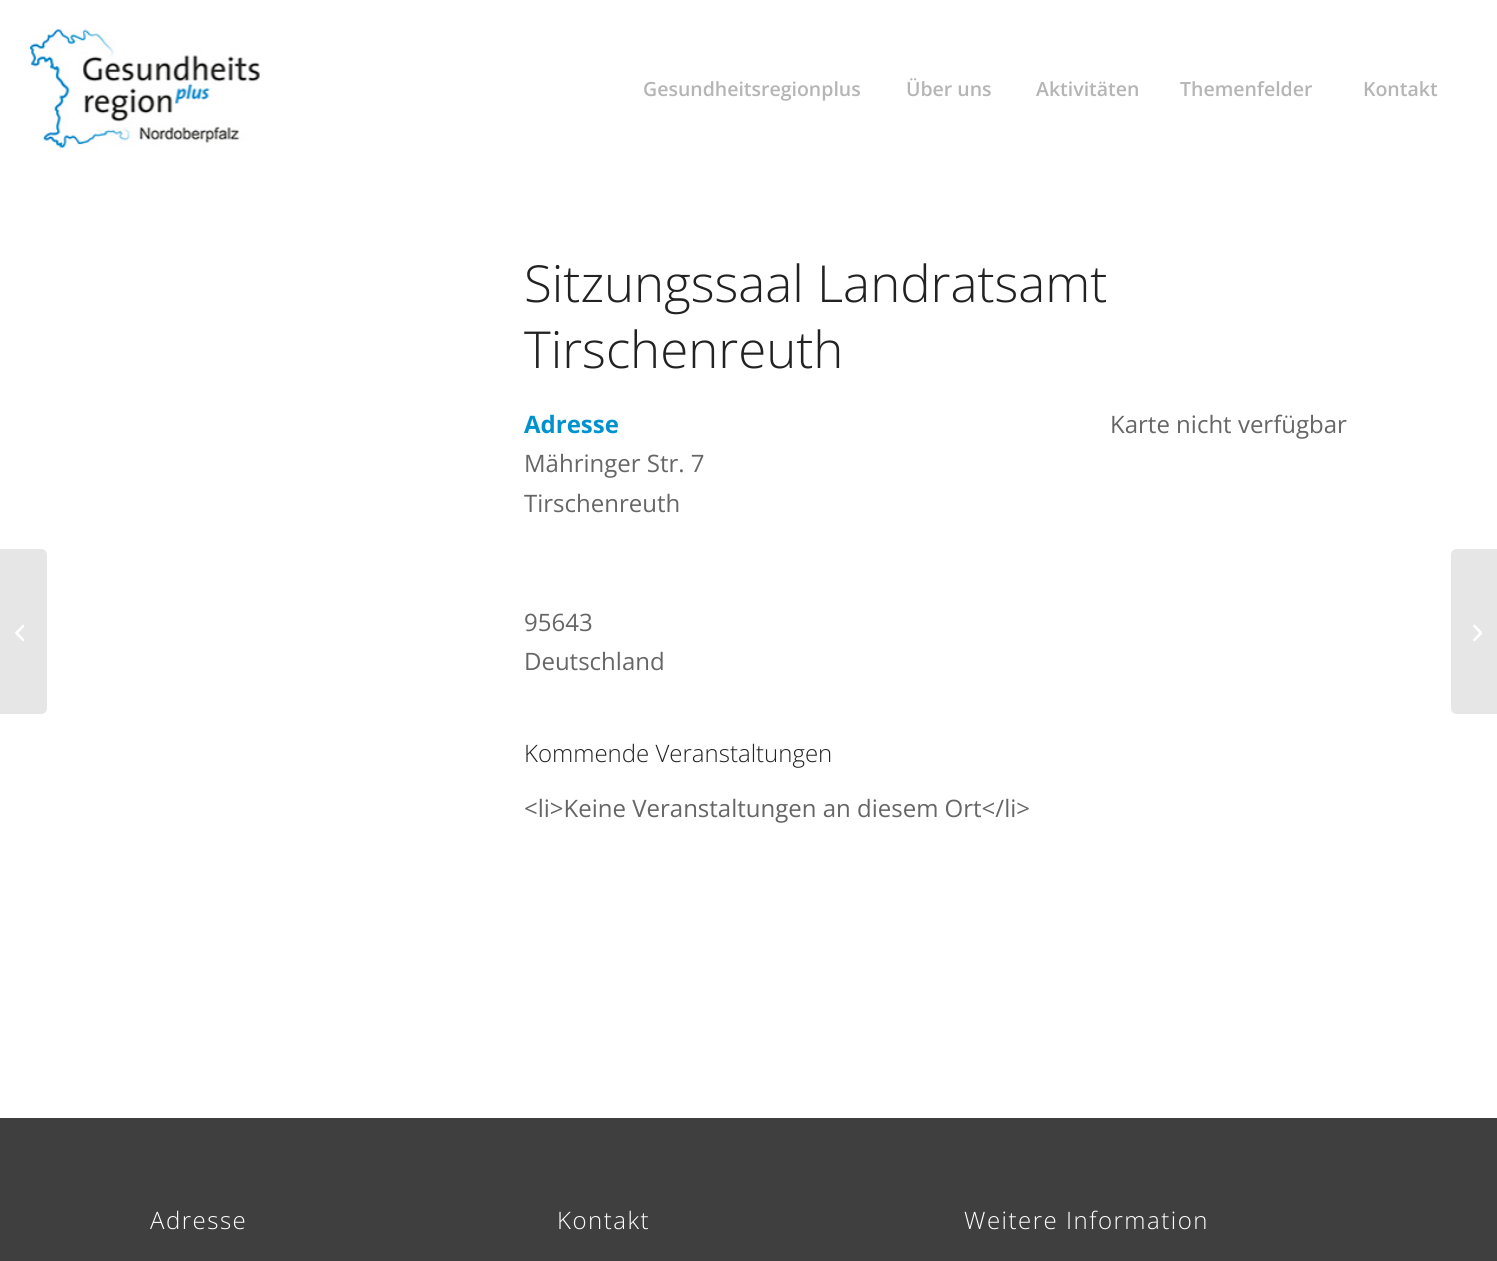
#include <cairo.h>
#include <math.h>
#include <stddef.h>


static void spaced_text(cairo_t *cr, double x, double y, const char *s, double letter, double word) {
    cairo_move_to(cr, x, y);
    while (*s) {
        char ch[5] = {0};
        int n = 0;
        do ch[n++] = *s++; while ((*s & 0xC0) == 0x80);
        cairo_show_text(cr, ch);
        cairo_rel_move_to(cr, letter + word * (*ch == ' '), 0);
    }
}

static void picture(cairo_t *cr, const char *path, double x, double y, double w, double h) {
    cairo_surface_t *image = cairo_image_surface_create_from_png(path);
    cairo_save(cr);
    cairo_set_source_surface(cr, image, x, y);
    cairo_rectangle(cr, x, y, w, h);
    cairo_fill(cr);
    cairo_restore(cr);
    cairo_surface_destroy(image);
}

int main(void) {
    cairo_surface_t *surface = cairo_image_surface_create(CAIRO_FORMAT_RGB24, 1497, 1261);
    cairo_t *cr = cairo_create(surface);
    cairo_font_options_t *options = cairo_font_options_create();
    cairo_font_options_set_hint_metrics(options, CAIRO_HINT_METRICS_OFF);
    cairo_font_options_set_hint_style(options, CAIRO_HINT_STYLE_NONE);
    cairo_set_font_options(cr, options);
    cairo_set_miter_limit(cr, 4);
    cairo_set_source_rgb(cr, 1, 1, 1);
    cairo_paint(cr);
    picture(cr, "img1.png", 30, 29, 230, 121);
    cairo_select_font_face(cr, "Open Sans SemiBold", CAIRO_FONT_SLANT_NORMAL, CAIRO_FONT_WEIGHT_NORMAL);
    cairo_set_font_size(cr, 19.5);
    cairo_set_source_rgb(cr, 0.71, 0.71, 0.71);
    cairo_move_to(cr, 643, 96);
    cairo_show_text(cr, "Gesundheitsregionplus");
    cairo_move_to(cr, 906, 96);
    cairo_show_text(cr, "Über uns");
    cairo_move_to(cr, 1036, 96);
    cairo_show_text(cr, "Aktivitäten");
    cairo_move_to(cr, 1180, 96);
    cairo_show_text(cr, "Themenfelder");
    cairo_move_to(cr, 1363, 96);
    cairo_show_text(cr, "Kontakt");
    cairo_set_source_rgb(cr, 0.902, 0.902, 0.902);
    cairo_new_path(cr);
    cairo_move_to(cr, 0, 549);
    cairo_line_to(cr, 41, 549);
    cairo_curve_to(cr, 44.5, 549, 47, 551.5, 47, 555);
    cairo_line_to(cr, 47, 708);
    cairo_curve_to(cr, 47, 711.5, 44.5, 714, 41, 714);
    cairo_line_to(cr, 0, 714);
    cairo_close_path(cr);
    cairo_fill(cr);
    picture(cr, "img2.png", 15, 624, 9, 18);
    cairo_select_font_face(cr, "Open Sans Light", CAIRO_FONT_SLANT_NORMAL, CAIRO_FONT_WEIGHT_NORMAL);
    cairo_set_font_size(cr, 51);
    cairo_set_source_rgb(cr, 0.133, 0.133, 0.133);
    cairo_move_to(cr, 524, 302);
    cairo_show_text(cr, "Sitzungssaal Landratsamt");
    cairo_move_to(cr, 524, 368);
    cairo_show_text(cr, "Tirschenreuth");
    cairo_select_font_face(cr, "Open Sans", CAIRO_FONT_SLANT_NORMAL, CAIRO_FONT_WEIGHT_BOLD);
    cairo_set_font_size(cr, 24);
    cairo_set_source_rgb(cr, 0, 0.569, 0.812);
    cairo_move_to(cr, 524, 433);
    cairo_show_text(cr, "Adresse");
    cairo_select_font_face(cr, "Open Sans", CAIRO_FONT_SLANT_NORMAL, CAIRO_FONT_WEIGHT_NORMAL);
    cairo_set_source_rgb(cr, 0.4, 0.4, 0.4);
    cairo_move_to(cr, 524, 472);
    cairo_show_text(cr, "Mähringer Str. 7");
    cairo_move_to(cr, 524, 512);
    cairo_show_text(cr, "Tirschenreuth");
    cairo_move_to(cr, 524, 631);
    cairo_show_text(cr, "95643");
    cairo_move_to(cr, 524, 670);
    cairo_show_text(cr, "Deutschland");
    cairo_move_to(cr, 1110, 433);
    cairo_show_text(cr, "Karte nicht verfügbar");
    cairo_select_font_face(cr, "Open Sans Light", CAIRO_FONT_SLANT_NORMAL, CAIRO_FONT_WEIGHT_NORMAL);
    cairo_set_source_rgb(cr, 0.133, 0.133, 0.133);
    cairo_move_to(cr, 524, 762);
    cairo_show_text(cr, "Kommende Veranstaltungen");
    cairo_select_font_face(cr, "Open Sans", CAIRO_FONT_SLANT_NORMAL, CAIRO_FONT_WEIGHT_NORMAL);
    cairo_set_source_rgb(cr, 0.4, 0.4, 0.4);
    cairo_move_to(cr, 524, 817);
    cairo_show_text(cr, "<li>Keine Veranstaltungen an diesem Ort</li>");
    cairo_set_source_rgb(cr, 0.247, 0.247, 0.247);
    cairo_rectangle(cr, 0, 1118, 1497, 143);
    cairo_fill(cr);
    cairo_select_font_face(cr, "Open Sans Light", CAIRO_FONT_SLANT_NORMAL, CAIRO_FONT_WEIGHT_NORMAL);
    cairo_set_source_rgb(cr, 1, 1, 1);
    spaced_text(cr, 150, 1229, "Adresse", 1.5, 0);
    spaced_text(cr, 557, 1229, "Kontakt", 1.5, 0);
    spaced_text(cr, 964, 1229, "Weitere Information", 1.5, 0);
    cairo_set_source_rgb(cr, 0.902, 0.902, 0.902);
    cairo_new_path(cr);
    cairo_move_to(cr, 1457, 549);
    cairo_line_to(cr, 1497, 549);
    cairo_line_to(cr, 1497, 714);
    cairo_line_to(cr, 1457, 714);
    cairo_curve_to(cr, 1453.5, 714, 1451, 711.5, 1451, 708);
    cairo_line_to(cr, 1451, 555);
    cairo_curve_to(cr, 1451, 551.5, 1453.5, 549, 1457, 549);
    cairo_close_path(cr);
    cairo_fill(cr);
    picture(cr, "img3.png", 1473, 624, 9, 18);
    cairo_surface_write_to_png(surface, "page.png");
    cairo_font_options_destroy(options);
    cairo_destroy(cr);
    cairo_surface_destroy(surface);
    return 0;
}
